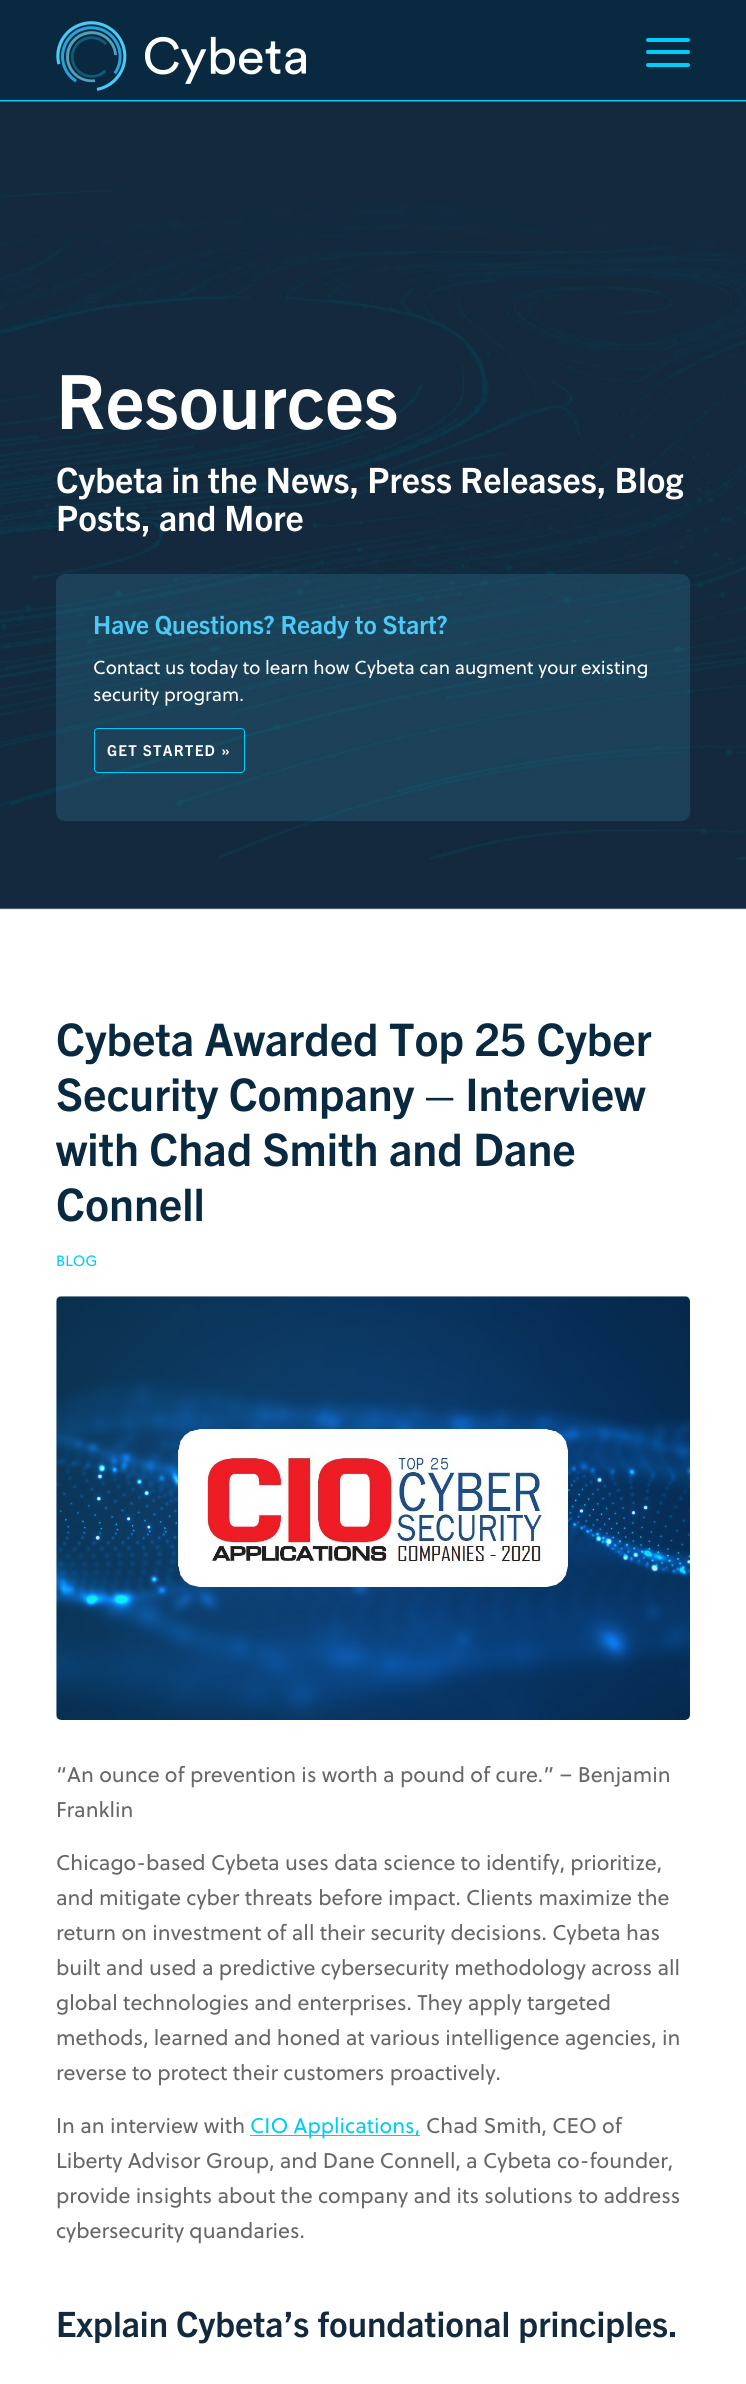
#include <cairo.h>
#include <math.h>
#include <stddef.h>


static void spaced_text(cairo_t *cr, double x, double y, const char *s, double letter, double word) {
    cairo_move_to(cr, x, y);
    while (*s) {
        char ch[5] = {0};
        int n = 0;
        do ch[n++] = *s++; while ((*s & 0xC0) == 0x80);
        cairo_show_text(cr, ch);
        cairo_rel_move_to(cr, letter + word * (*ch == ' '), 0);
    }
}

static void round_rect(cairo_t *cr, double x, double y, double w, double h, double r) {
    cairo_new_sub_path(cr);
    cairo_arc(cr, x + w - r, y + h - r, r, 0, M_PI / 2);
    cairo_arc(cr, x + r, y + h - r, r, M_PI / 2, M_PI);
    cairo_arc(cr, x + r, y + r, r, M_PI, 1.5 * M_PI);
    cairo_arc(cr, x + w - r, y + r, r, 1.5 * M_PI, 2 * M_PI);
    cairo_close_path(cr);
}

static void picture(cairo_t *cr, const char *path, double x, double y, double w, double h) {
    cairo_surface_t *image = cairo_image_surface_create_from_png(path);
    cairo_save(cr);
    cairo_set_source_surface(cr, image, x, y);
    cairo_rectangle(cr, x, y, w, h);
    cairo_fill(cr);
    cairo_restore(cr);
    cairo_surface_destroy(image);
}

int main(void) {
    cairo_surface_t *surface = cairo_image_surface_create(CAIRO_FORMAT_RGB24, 746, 2384);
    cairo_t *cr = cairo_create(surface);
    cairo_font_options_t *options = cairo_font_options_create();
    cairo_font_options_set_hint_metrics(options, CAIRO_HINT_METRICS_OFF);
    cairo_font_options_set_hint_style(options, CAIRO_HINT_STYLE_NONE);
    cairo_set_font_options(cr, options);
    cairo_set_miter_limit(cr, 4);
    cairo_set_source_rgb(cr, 1, 1, 1);
    cairo_paint(cr);
    cairo_set_source_rgb(cr, 0.035, 0.161, 0.247);
    cairo_rectangle(cr, 0, 0, 746, 100);
    cairo_fill(cr);
    cairo_set_source_rgb(cr, 0, 0.8, 0.98);
    cairo_rectangle(cr, 0, 100, 746, 1);
    cairo_fill(cr);
    picture(cr, "img1.png", 56, 21, 250, 70);
    round_rect(cr, 646, 50, 44, 4, 2);
    cairo_fill(cr);
    round_rect(cr, 646, 38, 44, 4, 2);
    cairo_fill(cr);
    round_rect(cr, 646, 63, 44, 4, 2);
    cairo_fill(cr);
    picture(cr, "img2.png", 0, 101, 746, 808);
    cairo_select_font_face(cr, "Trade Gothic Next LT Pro", CAIRO_FONT_SLANT_NORMAL, CAIRO_FONT_WEIGHT_BOLD);
    cairo_set_font_size(cr, 75);
    cairo_set_source_rgb(cr, 1, 1, 1);
    cairo_move_to(cr, 56, 429);
    cairo_show_text(cr, "Resources");
    cairo_set_font_size(cr, 35);
    cairo_move_to(cr, 56, 493);
    cairo_show_text(cr, "Cybeta in the News, Press Releases, Blog");
    cairo_move_to(cr, 56, 531);
    cairo_show_text(cr, "Posts, and More");
    cairo_set_source_rgba(cr, 0.302, 0.788, 0.961, 0.15);
    round_rect(cr, 56, 574, 634, 247, 9);
    cairo_fill(cr);
    cairo_set_font_size(cr, 25);
    cairo_set_source_rgb(cr, 0.302, 0.788, 0.961);
    cairo_move_to(cr, 93, 634);
    cairo_show_text(cr, "Have Questions? Ready to Start?");
    cairo_select_font_face(cr, "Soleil", CAIRO_FONT_SLANT_NORMAL, CAIRO_FONT_WEIGHT_NORMAL);
    cairo_set_font_size(cr, 18.75);
    cairo_set_source_rgb(cr, 1, 1, 1);
    cairo_move_to(cr, 93, 674);
    cairo_show_text(cr, "Contact us today to learn how Cybeta can augment your existing");
    cairo_move_to(cr, 93, 701);
    cairo_show_text(cr, "security program.");
    round_rect(cr, 94.5, 728.5, 150, 44, 3.5);
    cairo_set_source_rgb(cr, 0, 0.8, 0.98);
    cairo_set_line_width(cr, 1);
    cairo_stroke(cr);
    cairo_select_font_face(cr, "Trade Gothic Next LT Pro", CAIRO_FONT_SLANT_NORMAL, CAIRO_FONT_WEIGHT_BOLD);
    cairo_set_font_size(cr, 15);
    cairo_set_source_rgb(cr, 1, 1, 1);
    spaced_text(cr, 107, 756, "GET STARTED »", 1.25, 0);
    cairo_set_source_rgb(cr, 0.922, 0.922, 0.922);
    cairo_rectangle(cr, 0, 909, 746, 1);
    cairo_fill(cr);
    cairo_set_font_size(cr, 45);
    cairo_set_source_rgb(cr, 0.035, 0.161, 0.247);
    cairo_move_to(cr, 56, 1056);
    cairo_show_text(cr, "Cybeta Awarded Top 25 Cyber");
    cairo_move_to(cr, 56, 1111);
    cairo_show_text(cr, "Security Company – Interview");
    cairo_move_to(cr, 56, 1166);
    cairo_show_text(cr, "with Chad Smith and Dane");
    cairo_move_to(cr, 56, 1221);
    cairo_show_text(cr, "Connell");
    cairo_select_font_face(cr, "Soleil", CAIRO_FONT_SLANT_NORMAL, CAIRO_FONT_WEIGHT_NORMAL);
    cairo_set_font_size(cr, 15);
    cairo_set_source_rgb(cr, 0, 0.8, 0.98);
    cairo_move_to(cr, 56, 1266);
    cairo_show_text(cr, "BLOG");
    picture(cr, "img3.png", 56, 1296, 634, 424);
    cairo_set_font_size(cr, 21.25);
    cairo_set_source_rgb(cr, 0.408, 0.404, 0.404);
    cairo_move_to(cr, 56, 1782);
    cairo_show_text(cr, "“An ounce of prevention is worth a pound of cure.” – Benjamin");
    cairo_move_to(cr, 56, 1817);
    cairo_show_text(cr, "Franklin");
    cairo_move_to(cr, 56, 1870);
    cairo_show_text(cr, "Chicago-based Cybeta uses data science to identify, prioritize,");
    cairo_move_to(cr, 56, 1905);
    cairo_show_text(cr, "and mitigate cyber threats before impact. Clients maximize the");
    cairo_move_to(cr, 56, 1940);
    cairo_show_text(cr, "return on investment of all their security decisions. Cybeta has");
    cairo_move_to(cr, 56, 1975);
    cairo_show_text(cr, "built and used a predictive cybersecurity methodology across all");
    cairo_move_to(cr, 56, 2010);
    cairo_show_text(cr, "global technologies and enterprises. They apply targeted");
    cairo_move_to(cr, 56, 2045);
    cairo_show_text(cr, "methods, learned and honed at various intelligence agencies, in");
    cairo_move_to(cr, 56, 2080);
    cairo_show_text(cr, "reverse to protect their customers proactively.");
    cairo_move_to(cr, 56, 2133);
    cairo_show_text(cr, "In an interview with");
    cairo_set_source_rgb(cr, 0, 0.8, 0.98);
    cairo_rectangle(cr, 250, 2135, 170, 1);
    cairo_fill(cr);
    cairo_move_to(cr, 250, 2133);
    cairo_show_text(cr, "CIO Applications,");
    cairo_set_source_rgb(cr, 0.408, 0.404, 0.404);
    cairo_move_to(cr, 426, 2133);
    cairo_show_text(cr, "Chad Smith, CEO of");
    cairo_move_to(cr, 56, 2168);
    cairo_show_text(cr, "Liberty Advisor Group, and Dane Connell, a Cybeta co-founder,");
    cairo_move_to(cr, 56, 2203);
    cairo_show_text(cr, "provide insights about the company and its solutions to address");
    cairo_move_to(cr, 56, 2238);
    cairo_show_text(cr, "cybersecurity quandaries.");
    cairo_select_font_face(cr, "Trade Gothic Next LT Pro", CAIRO_FONT_SLANT_NORMAL, CAIRO_FONT_WEIGHT_BOLD);
    cairo_set_font_size(cr, 35);
    cairo_set_source_rgb(cr, 0.075, 0.161, 0.239);
    cairo_move_to(cr, 56, 2337);
    cairo_show_text(cr, "Explain Cybeta’s foundational principles.");
    cairo_surface_write_to_png(surface, "page.png");
    cairo_font_options_destroy(options);
    cairo_destroy(cr);
    cairo_surface_destroy(surface);
    return 0;
}
